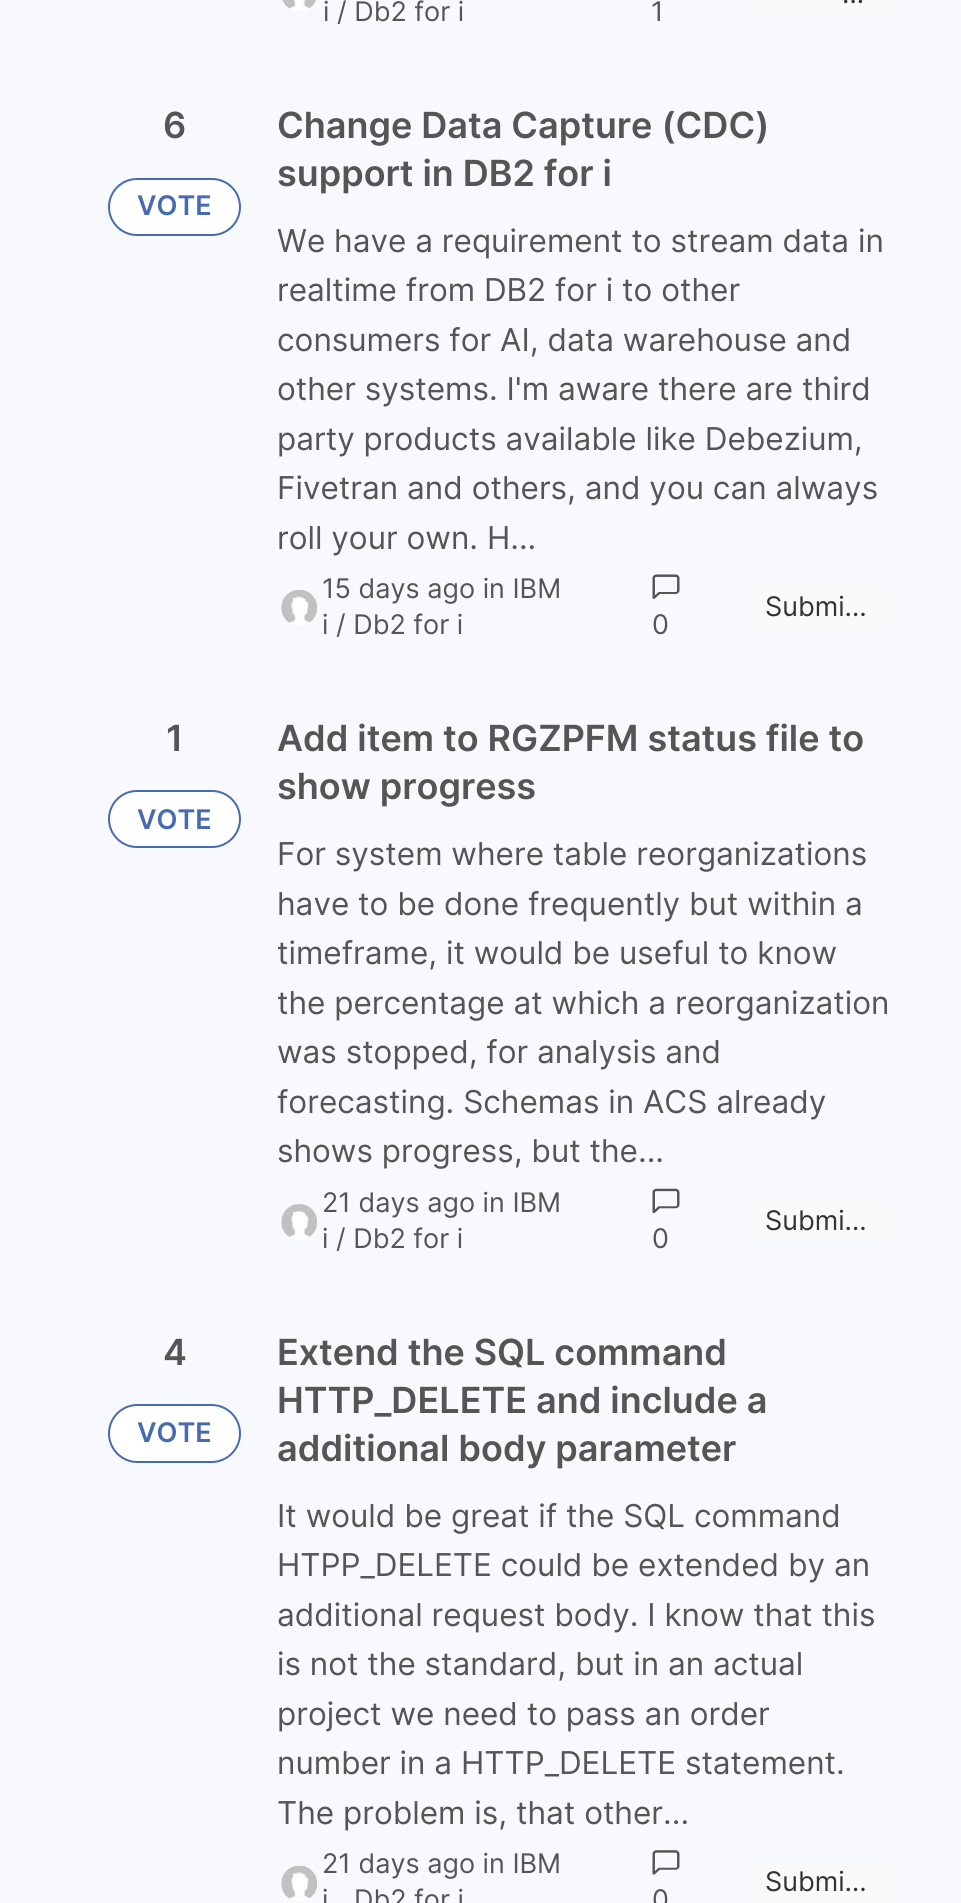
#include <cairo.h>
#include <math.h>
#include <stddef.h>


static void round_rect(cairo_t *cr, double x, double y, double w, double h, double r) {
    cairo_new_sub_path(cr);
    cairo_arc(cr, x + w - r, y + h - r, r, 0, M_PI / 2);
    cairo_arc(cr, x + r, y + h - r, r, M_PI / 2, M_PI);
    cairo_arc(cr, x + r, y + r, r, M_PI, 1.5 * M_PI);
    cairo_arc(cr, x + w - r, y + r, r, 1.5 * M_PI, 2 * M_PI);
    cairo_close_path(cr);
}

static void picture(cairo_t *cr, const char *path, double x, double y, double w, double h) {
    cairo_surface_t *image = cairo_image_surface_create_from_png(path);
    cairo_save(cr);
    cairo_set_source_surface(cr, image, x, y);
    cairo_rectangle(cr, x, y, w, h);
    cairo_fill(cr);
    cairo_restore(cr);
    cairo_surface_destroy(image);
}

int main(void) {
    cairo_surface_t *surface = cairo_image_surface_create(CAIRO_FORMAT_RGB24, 961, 1903);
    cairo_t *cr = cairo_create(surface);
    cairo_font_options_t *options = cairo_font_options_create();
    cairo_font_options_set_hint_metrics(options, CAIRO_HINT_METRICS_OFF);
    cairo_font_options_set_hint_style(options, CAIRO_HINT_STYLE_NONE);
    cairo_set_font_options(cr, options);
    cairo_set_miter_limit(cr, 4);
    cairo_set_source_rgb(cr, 0.969, 0.976, 0.988);
    cairo_paint(cr);
    picture(cr, "img1.png", 282, 0, 34, 11);
    cairo_select_font_face(cr, "Inter", CAIRO_FONT_SLANT_NORMAL, CAIRO_FONT_WEIGHT_NORMAL);
    cairo_set_font_size(cr, 27);
    cairo_set_source_rgb(cr, 0.333, 0.333, 0.333);
    cairo_move_to(cr, 323, 21);
    cairo_show_text(cr, "i / Db2 for i");
    cairo_move_to(cr, 651, 21);
    cairo_show_text(cr, "1");
    cairo_set_source_rgb(cr, 0.98, 0.98, 0.98);
    round_rect(cr, 745, -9, 144, 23, 9);
    cairo_fill(cr);
    cairo_set_source_rgb(cr, 0.2, 0.2, 0.2);
    cairo_move_to(cr, 842, 3);
    cairo_show_text(cr, "…");
    cairo_select_font_face(cr, "Inter SemiBold", CAIRO_FONT_SLANT_NORMAL, CAIRO_FONT_WEIGHT_NORMAL);
    cairo_set_font_size(cr, 36);
    cairo_set_source_rgb(cr, 0.333, 0.333, 0.333);
    cairo_move_to(cr, 163, 138);
    cairo_show_text(cr, "6");
    cairo_set_source_rgb(cr, 1, 1, 1);
    round_rect(cr, 109, 179, 131, 56, 28);
    cairo_fill_preserve(cr);
    cairo_set_source_rgb(cr, 0.275, 0.42, 0.69);
    cairo_stroke(cr);
    cairo_set_font_size(cr, 27);
    cairo_move_to(cr, 137, 215);
    cairo_show_text(cr, "VOTE");
    cairo_set_font_size(cr, 36);
    cairo_set_source_rgb(cr, 0.333, 0.333, 0.333);
    cairo_move_to(cr, 277, 138);
    cairo_show_text(cr, "Change Data Capture (CDC)");
    cairo_move_to(cr, 277, 186);
    cairo_show_text(cr, "support in DB2 for i");
    cairo_select_font_face(cr, "Inter", CAIRO_FONT_SLANT_NORMAL, CAIRO_FONT_WEIGHT_NORMAL);
    cairo_set_font_size(cr, 31.5);
    cairo_move_to(cr, 277, 252);
    cairo_show_text(cr, "We have a requirement to stream data in");
    cairo_move_to(cr, 277, 301);
    cairo_show_text(cr, "realtime from DB2 for i to other");
    cairo_move_to(cr, 277, 351);
    cairo_show_text(cr, "consumers for AI, data warehouse and");
    cairo_move_to(cr, 277, 400);
    cairo_show_text(cr, "other systems. I'm aware there are third");
    cairo_move_to(cr, 277, 450);
    cairo_show_text(cr, "party products available like Debezium,");
    cairo_move_to(cr, 277, 499);
    cairo_show_text(cr, "Fivetran and others, and you can always");
    cairo_move_to(cr, 277, 549);
    cairo_show_text(cr, "roll your own. H...");
    picture(cr, "img2.png", 281, 590, 36, 36);
    cairo_set_font_size(cr, 27);
    cairo_move_to(cr, 322, 598);
    cairo_show_text(cr, "15 days ago in IBM");
    cairo_move_to(cr, 322, 634);
    cairo_show_text(cr, "i / Db2 for i");
    cairo_set_source_rgb(cr, 0.98, 0.98, 0.98);
    round_rect(cr, 747, 587, 142, 41, 9);
    cairo_fill(cr);
    cairo_set_source_rgb(cr, 0.2, 0.2, 0.2);
    cairo_move_to(cr, 765, 616);
    cairo_show_text(cr, "Submi…");
    picture(cr, "img3.png", 652, 574, 28, 25);
    cairo_set_source_rgb(cr, 0.333, 0.333, 0.333);
    cairo_move_to(cr, 652, 634);
    cairo_show_text(cr, "0");
    cairo_select_font_face(cr, "Inter SemiBold", CAIRO_FONT_SLANT_NORMAL, CAIRO_FONT_WEIGHT_NORMAL);
    cairo_set_font_size(cr, 36);
    cairo_move_to(cr, 166, 751);
    cairo_show_text(cr, "1");
    cairo_set_source_rgb(cr, 1, 1, 1);
    round_rect(cr, 109, 791, 131, 56, 28);
    cairo_fill_preserve(cr);
    cairo_set_source_rgb(cr, 0.275, 0.42, 0.69);
    cairo_stroke(cr);
    cairo_set_font_size(cr, 27);
    cairo_move_to(cr, 137, 829);
    cairo_show_text(cr, "VOTE");
    cairo_set_font_size(cr, 36);
    cairo_set_source_rgb(cr, 0.333, 0.333, 0.333);
    cairo_move_to(cr, 277, 751);
    cairo_show_text(cr, "Add item to RGZPFM status file to");
    cairo_move_to(cr, 277, 799);
    cairo_show_text(cr, "show progress");
    cairo_select_font_face(cr, "Inter", CAIRO_FONT_SLANT_NORMAL, CAIRO_FONT_WEIGHT_NORMAL);
    cairo_set_font_size(cr, 31.5);
    cairo_move_to(cr, 277, 865);
    cairo_show_text(cr, "For system where table reorganizations");
    cairo_move_to(cr, 277, 915);
    cairo_show_text(cr, "have to be done frequently but within a");
    cairo_move_to(cr, 277, 964);
    cairo_show_text(cr, "timeframe, it would be useful to know");
    cairo_move_to(cr, 277, 1014);
    cairo_show_text(cr, "the percentage at which a reorganization");
    cairo_move_to(cr, 277, 1063);
    cairo_show_text(cr, "was stopped, for analysis and");
    cairo_move_to(cr, 277, 1113);
    cairo_show_text(cr, "forecasting. Schemas in ACS already");
    cairo_move_to(cr, 277, 1162);
    cairo_show_text(cr, "shows progress, but the...");
    picture(cr, "img4.png", 281, 1204, 36, 36);
    cairo_set_font_size(cr, 27);
    cairo_move_to(cr, 322, 1212);
    cairo_show_text(cr, "21 days ago in IBM");
    cairo_move_to(cr, 322, 1248);
    cairo_show_text(cr, "i / Db2 for i");
    cairo_set_source_rgb(cr, 0.98, 0.98, 0.98);
    round_rect(cr, 747, 1202, 142, 40, 9);
    cairo_fill(cr);
    cairo_set_source_rgb(cr, 0.2, 0.2, 0.2);
    cairo_move_to(cr, 765, 1230);
    cairo_show_text(cr, "Submi…");
    picture(cr, "img5.png", 652, 1188, 28, 26);
    cairo_set_source_rgb(cr, 0.333, 0.333, 0.333);
    cairo_move_to(cr, 652, 1248);
    cairo_show_text(cr, "0");
    cairo_select_font_face(cr, "Inter SemiBold", CAIRO_FONT_SLANT_NORMAL, CAIRO_FONT_WEIGHT_NORMAL);
    cairo_set_font_size(cr, 36);
    cairo_move_to(cr, 163, 1365);
    cairo_show_text(cr, "4");
    cairo_set_source_rgb(cr, 1, 1, 1);
    round_rect(cr, 109, 1405, 131, 57, 28.5);
    cairo_fill_preserve(cr);
    cairo_set_source_rgb(cr, 0.275, 0.42, 0.69);
    cairo_stroke(cr);
    cairo_set_font_size(cr, 27);
    cairo_move_to(cr, 137, 1442);
    cairo_show_text(cr, "VOTE");
    cairo_set_font_size(cr, 36);
    cairo_set_source_rgb(cr, 0.333, 0.333, 0.333);
    cairo_move_to(cr, 277, 1365);
    cairo_show_text(cr, "Extend the SQL command");
    cairo_move_to(cr, 277, 1413);
    cairo_show_text(cr, "HTTP_DELETE and include a");
    cairo_move_to(cr, 277, 1461);
    cairo_show_text(cr, "additional body parameter");
    cairo_select_font_face(cr, "Inter", CAIRO_FONT_SLANT_NORMAL, CAIRO_FONT_WEIGHT_NORMAL);
    cairo_set_font_size(cr, 31.5);
    cairo_move_to(cr, 277, 1527);
    cairo_show_text(cr, "It would be great if the SQL command");
    cairo_move_to(cr, 277, 1576);
    cairo_show_text(cr, "HTPP_DELETE could be extended by an");
    cairo_move_to(cr, 277, 1626);
    cairo_show_text(cr, "additional request body. I know that this");
    cairo_move_to(cr, 277, 1675);
    cairo_show_text(cr, "is not the standard, but in an actual");
    cairo_move_to(cr, 277, 1725);
    cairo_show_text(cr, "project we need to pass an order");
    cairo_move_to(cr, 277, 1774);
    cairo_show_text(cr, "number in a HTTP_DELETE statement.");
    cairo_move_to(cr, 277, 1824);
    cairo_show_text(cr, "The problem is, that other...");
    picture(cr, "img6.png", 281, 1865, 36, 36);
    cairo_set_font_size(cr, 27);
    cairo_move_to(cr, 322, 1873);
    cairo_show_text(cr, "21 days ago in IBM");
    cairo_move_to(cr, 322, 1909);
    cairo_show_text(cr, "i");
    cairo_move_to(cr, 354, 1909);
    cairo_show_text(cr, "Db2 for i");
    cairo_set_source_rgb(cr, 0.98, 0.98, 0.98);
    round_rect(cr, 747, 1863, 142, 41, 9);
    cairo_fill(cr);
    cairo_set_source_rgb(cr, 0.2, 0.2, 0.2);
    cairo_move_to(cr, 765, 1891);
    cairo_show_text(cr, "Submi…");
    picture(cr, "img7.png", 652, 1850, 28, 25);
    cairo_set_source_rgb(cr, 0.333, 0.333, 0.333);
    cairo_move_to(cr, 652, 1909);
    cairo_show_text(cr, "0");
    cairo_surface_write_to_png(surface, "page.png");
    cairo_font_options_destroy(options);
    cairo_destroy(cr);
    cairo_surface_destroy(surface);
    return 0;
}
